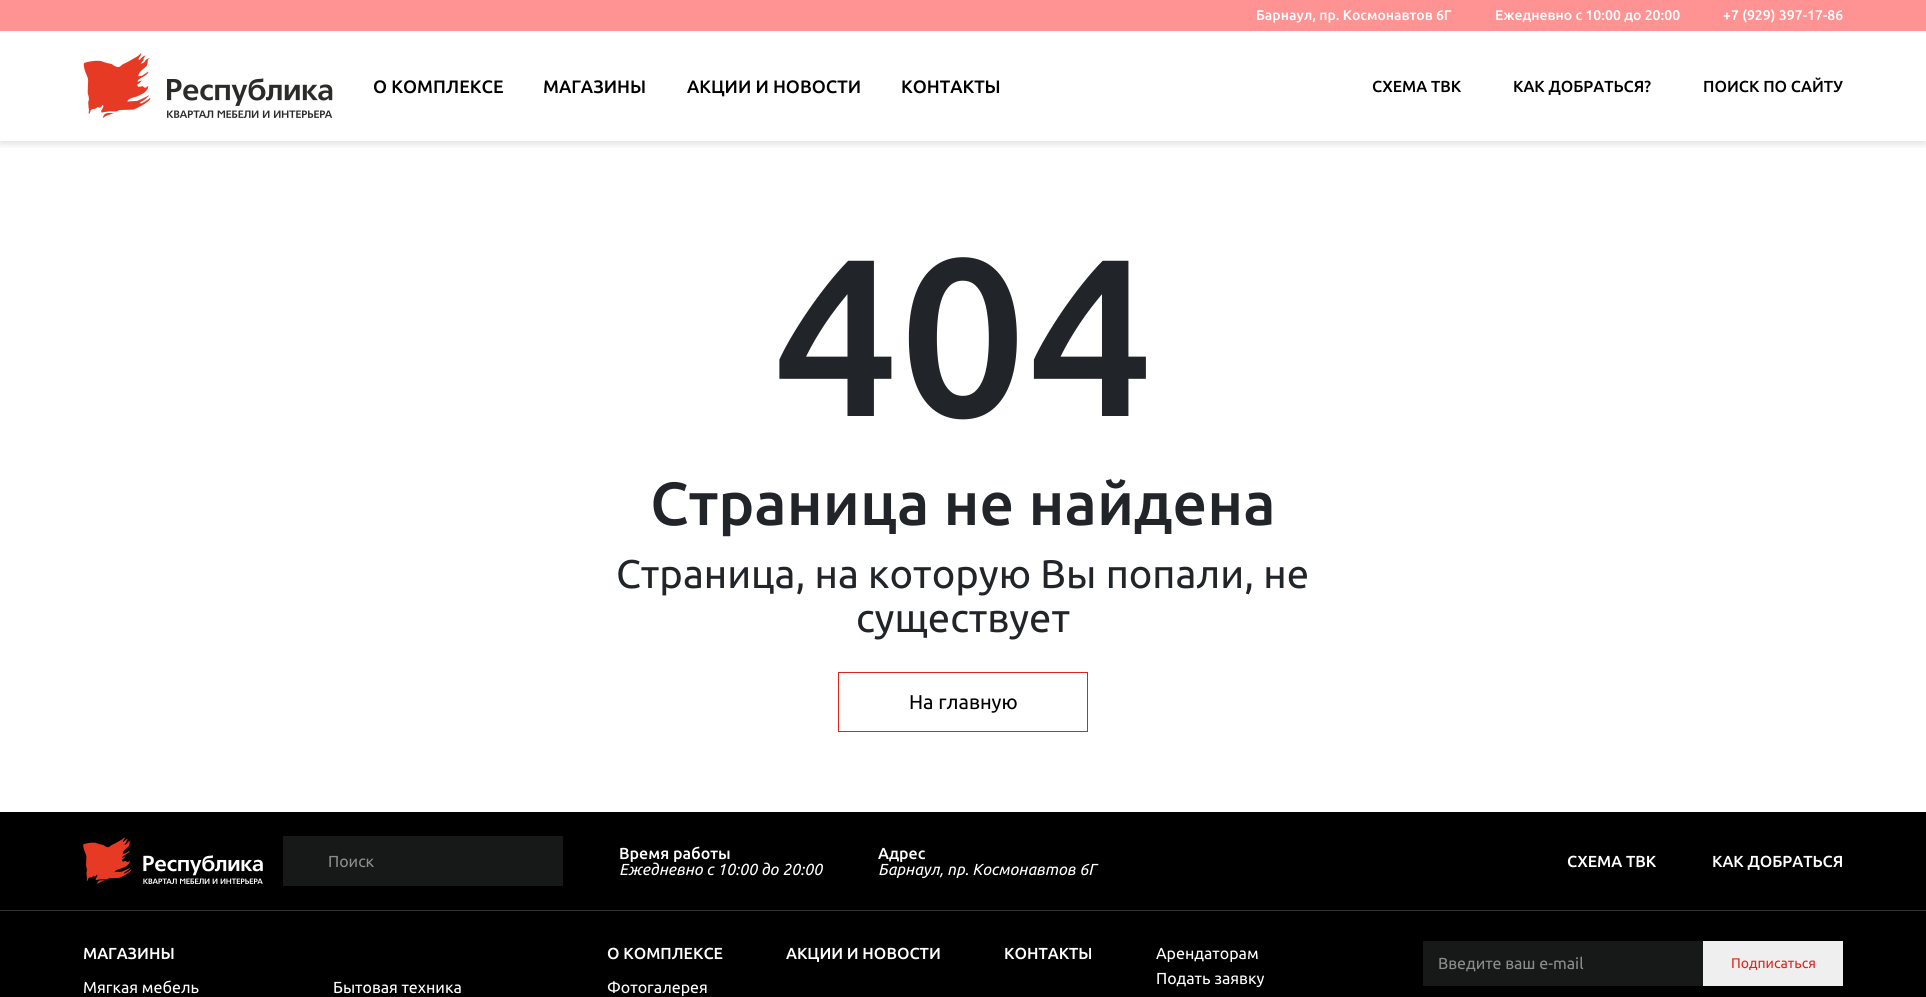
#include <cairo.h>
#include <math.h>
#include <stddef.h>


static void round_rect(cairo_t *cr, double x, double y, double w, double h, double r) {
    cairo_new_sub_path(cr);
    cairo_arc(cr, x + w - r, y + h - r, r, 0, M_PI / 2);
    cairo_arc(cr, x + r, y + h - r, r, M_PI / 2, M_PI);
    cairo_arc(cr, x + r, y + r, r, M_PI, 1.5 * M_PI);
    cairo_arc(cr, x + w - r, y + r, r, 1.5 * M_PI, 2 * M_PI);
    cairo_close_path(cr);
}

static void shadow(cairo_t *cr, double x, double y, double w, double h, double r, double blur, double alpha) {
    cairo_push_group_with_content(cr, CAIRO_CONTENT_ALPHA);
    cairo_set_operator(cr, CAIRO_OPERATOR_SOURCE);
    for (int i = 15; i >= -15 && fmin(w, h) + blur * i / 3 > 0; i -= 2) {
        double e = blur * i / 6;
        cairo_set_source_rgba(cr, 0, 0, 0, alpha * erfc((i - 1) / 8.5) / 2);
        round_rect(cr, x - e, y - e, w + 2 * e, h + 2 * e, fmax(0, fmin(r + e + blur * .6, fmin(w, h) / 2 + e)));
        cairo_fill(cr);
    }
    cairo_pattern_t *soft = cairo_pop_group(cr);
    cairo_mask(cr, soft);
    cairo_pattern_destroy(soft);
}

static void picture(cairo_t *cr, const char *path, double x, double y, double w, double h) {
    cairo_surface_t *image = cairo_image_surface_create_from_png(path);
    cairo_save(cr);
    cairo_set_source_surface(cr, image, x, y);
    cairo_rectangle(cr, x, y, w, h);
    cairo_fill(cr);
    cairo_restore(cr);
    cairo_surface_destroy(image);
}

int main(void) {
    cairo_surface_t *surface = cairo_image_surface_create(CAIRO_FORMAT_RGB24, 1926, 997);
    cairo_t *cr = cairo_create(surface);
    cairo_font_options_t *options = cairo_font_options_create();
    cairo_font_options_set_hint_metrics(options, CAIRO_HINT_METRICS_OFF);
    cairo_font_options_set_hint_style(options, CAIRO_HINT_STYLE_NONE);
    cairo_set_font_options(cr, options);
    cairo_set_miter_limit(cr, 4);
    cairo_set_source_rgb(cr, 1, 1, 1);
    cairo_paint(cr);
    cairo_save(cr);
    cairo_rectangle(cr, 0, 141, 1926, 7);
    cairo_clip(cr);
    cairo_set_source_rgb(cr, 0, 0, 0);
    shadow(cr, 0, 4, 1926, 141, 0, 3, 0.1);
    cairo_restore(cr);
    cairo_set_source_rgb(cr, 1, 0.573, 0.573);
    cairo_rectangle(cr, 0, 0, 1926, 31);
    cairo_fill(cr);
    cairo_select_font_face(cr, "Ubuntu Medium", CAIRO_FONT_SLANT_NORMAL, CAIRO_FONT_WEIGHT_NORMAL);
    cairo_set_font_size(cr, 14);
    cairo_set_source_rgb(cr, 1, 1, 1);
    cairo_move_to(cr, 1256, 20);
    cairo_show_text(cr, "Барнаул, пр. Космонавтов 6Г");
    cairo_move_to(cr, 1495, 20);
    cairo_show_text(cr, "Ежедневно с 10:00 до 20:00");
    cairo_move_to(cr, 1723, 20);
    cairo_show_text(cr, "+7 (929) 397-17-86");
    picture(cr, "img1.png", 83, 53, 250, 65);
    cairo_set_font_size(cr, 18);
    cairo_set_source_rgb(cr, 0, 0, 0);
    cairo_move_to(cr, 373, 93);
    cairo_show_text(cr, "О КОМПЛЕКСЕ");
    cairo_move_to(cr, 543, 93);
    cairo_show_text(cr, "МАГАЗИНЫ");
    cairo_move_to(cr, 687, 93);
    cairo_show_text(cr, "АКЦИИ И НОВОСТИ");
    cairo_move_to(cr, 901, 93);
    cairo_show_text(cr, "КОНТАКТЫ");
    cairo_set_font_size(cr, 16);
    cairo_move_to(cr, 1372, 92);
    cairo_show_text(cr, "СХЕМА ТВК");
    cairo_move_to(cr, 1513, 92);
    cairo_show_text(cr, "КАК ДОБРАТЬСЯ?");
    cairo_move_to(cr, 1703, 92);
    cairo_show_text(cr, "ПОИСК ПО САЙТУ");
    cairo_set_font_size(cr, 224);
    cairo_set_source_rgb(cr, 0.129, 0.145, 0.161);
    cairo_move_to(cr, 772, 416);
    cairo_show_text(cr, "404");
    cairo_set_font_size(cr, 60.75);
    cairo_move_to(cr, 650, 525);
    cairo_show_text(cr, "Страница не найдена");
    cairo_select_font_face(cr, "Ubuntu", CAIRO_FONT_SLANT_NORMAL, CAIRO_FONT_WEIGHT_NORMAL);
    cairo_set_font_size(cr, 40);
    cairo_move_to(cr, 616, 588);
    cairo_show_text(cr, "Страница, на которую Вы попали, не");
    cairo_move_to(cr, 856, 632);
    cairo_show_text(cr, "существует");
    cairo_rectangle(cr, 838.5, 672.5, 249, 59);
    cairo_set_source_rgb(cr, 0.859, 0.149, 0.122);
    cairo_set_line_width(cr, 1);
    cairo_stroke(cr);
    cairo_set_font_size(cr, 20);
    cairo_set_source_rgb(cr, 0, 0, 0);
    cairo_move_to(cr, 909, 709);
    cairo_show_text(cr, "На главную");
    cairo_rectangle(cr, 0, 812, 1926, 185);
    cairo_fill(cr);
    picture(cr, "img2.png", 83, 837, 180, 47);
    cairo_set_source_rgb(cr, 0.09, 0.094, 0.094);
    cairo_rectangle(cr, 283, 836, 280, 50);
    cairo_fill(cr);
    cairo_set_font_size(cr, 16);
    cairo_set_source_rgb(cr, 0.545, 0.549, 0.549);
    cairo_move_to(cr, 328, 867);
    cairo_show_text(cr, "Поиск");
    cairo_select_font_face(cr, "Ubuntu Medium", CAIRO_FONT_SLANT_NORMAL, CAIRO_FONT_WEIGHT_NORMAL);
    cairo_set_source_rgb(cr, 1, 1, 1);
    cairo_move_to(cr, 619, 859);
    cairo_show_text(cr, "Время работы");
    cairo_select_font_face(cr, "Ubuntu", CAIRO_FONT_SLANT_ITALIC, CAIRO_FONT_WEIGHT_NORMAL);
    cairo_move_to(cr, 619, 875);
    cairo_show_text(cr, "Ежедневно с 10:00 до 20:00");
    cairo_select_font_face(cr, "Ubuntu Medium", CAIRO_FONT_SLANT_NORMAL, CAIRO_FONT_WEIGHT_NORMAL);
    cairo_move_to(cr, 878, 859);
    cairo_show_text(cr, "Адрес");
    cairo_select_font_face(cr, "Ubuntu", CAIRO_FONT_SLANT_ITALIC, CAIRO_FONT_WEIGHT_NORMAL);
    cairo_move_to(cr, 878, 875);
    cairo_show_text(cr, "Барнаул, пр. Космонавтов 6Г");
    cairo_select_font_face(cr, "Ubuntu Medium", CAIRO_FONT_SLANT_NORMAL, CAIRO_FONT_WEIGHT_NORMAL);
    cairo_move_to(cr, 1567, 867);
    cairo_show_text(cr, "СХЕМА ТВК");
    cairo_move_to(cr, 1712, 867);
    cairo_show_text(cr, "КАК ДОБРАТЬСЯ");
    cairo_set_source_rgb(cr, 0.2, 0.2, 0.2);
    cairo_rectangle(cr, 0, 910, 1926, 1);
    cairo_fill(cr);
    cairo_set_source_rgb(cr, 1, 1, 1);
    cairo_move_to(cr, 83, 959);
    cairo_show_text(cr, "МАГАЗИНЫ");
    cairo_select_font_face(cr, "Ubuntu", CAIRO_FONT_SLANT_NORMAL, CAIRO_FONT_WEIGHT_NORMAL);
    cairo_move_to(cr, 83, 993);
    cairo_show_text(cr, "Мягкая мебель");
    cairo_move_to(cr, 333, 993);
    cairo_show_text(cr, "Бытовая техника");
    cairo_select_font_face(cr, "Ubuntu Medium", CAIRO_FONT_SLANT_NORMAL, CAIRO_FONT_WEIGHT_NORMAL);
    cairo_move_to(cr, 607, 959);
    cairo_show_text(cr, "О КОМПЛЕКСЕ");
    cairo_select_font_face(cr, "Ubuntu", CAIRO_FONT_SLANT_NORMAL, CAIRO_FONT_WEIGHT_NORMAL);
    cairo_move_to(cr, 607, 993);
    cairo_show_text(cr, "Фотогалерея");
    cairo_select_font_face(cr, "Ubuntu Medium", CAIRO_FONT_SLANT_NORMAL, CAIRO_FONT_WEIGHT_NORMAL);
    cairo_move_to(cr, 786, 959);
    cairo_show_text(cr, "АКЦИИ И НОВОСТИ");
    cairo_move_to(cr, 1004, 959);
    cairo_show_text(cr, "КОНТАКТЫ");
    cairo_select_font_face(cr, "Ubuntu", CAIRO_FONT_SLANT_NORMAL, CAIRO_FONT_WEIGHT_NORMAL);
    cairo_move_to(cr, 1156, 959);
    cairo_show_text(cr, "Арендаторам");
    cairo_move_to(cr, 1156, 984);
    cairo_show_text(cr, "Подать заявку");
    cairo_set_source_rgb(cr, 0.09, 0.094, 0.094);
    cairo_rectangle(cr, 1423, 941, 280, 45);
    cairo_fill(cr);
    cairo_set_source_rgb(cr, 0.545, 0.549, 0.549);
    cairo_move_to(cr, 1438, 969);
    cairo_show_text(cr, "Введите ваш e-mail");
    cairo_set_source_rgb(cr, 0.937, 0.937, 0.937);
    cairo_rectangle(cr, 1703, 941, 140, 45);
    cairo_fill(cr);
    cairo_set_font_size(cr, 14);
    cairo_set_source_rgb(cr, 0.859, 0.149, 0.122);
    cairo_move_to(cr, 1731, 968);
    cairo_show_text(cr, "Подписаться");
    cairo_surface_write_to_png(surface, "page.png");
    cairo_font_options_destroy(options);
    cairo_destroy(cr);
    cairo_surface_destroy(surface);
    return 0;
}
